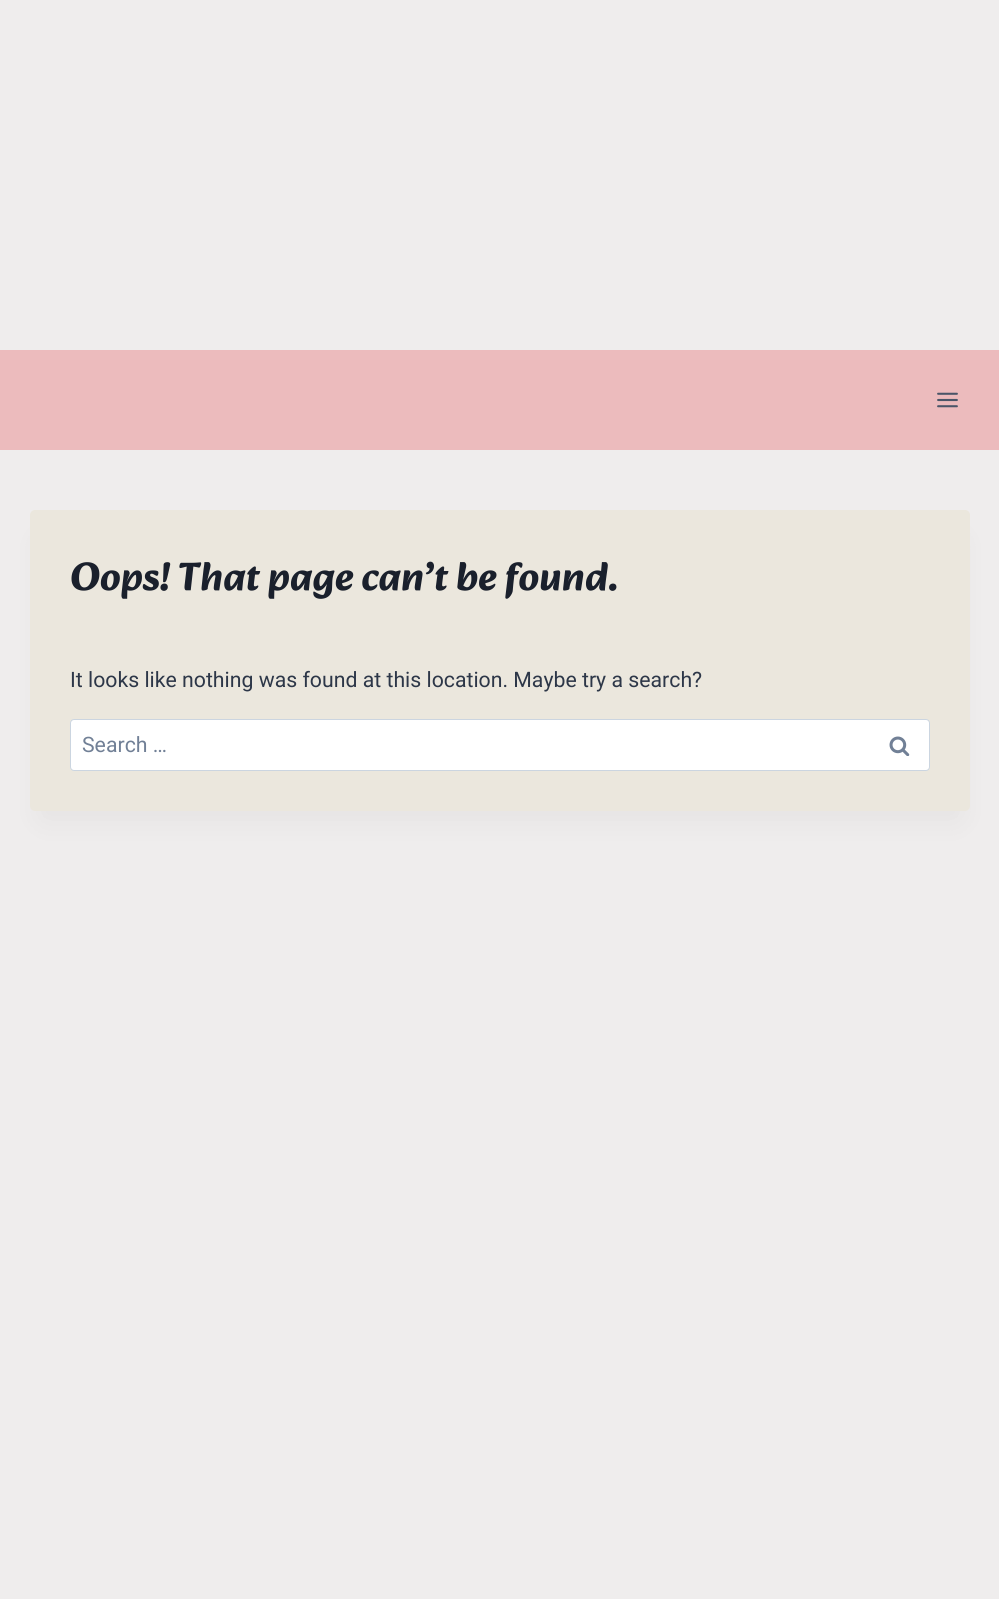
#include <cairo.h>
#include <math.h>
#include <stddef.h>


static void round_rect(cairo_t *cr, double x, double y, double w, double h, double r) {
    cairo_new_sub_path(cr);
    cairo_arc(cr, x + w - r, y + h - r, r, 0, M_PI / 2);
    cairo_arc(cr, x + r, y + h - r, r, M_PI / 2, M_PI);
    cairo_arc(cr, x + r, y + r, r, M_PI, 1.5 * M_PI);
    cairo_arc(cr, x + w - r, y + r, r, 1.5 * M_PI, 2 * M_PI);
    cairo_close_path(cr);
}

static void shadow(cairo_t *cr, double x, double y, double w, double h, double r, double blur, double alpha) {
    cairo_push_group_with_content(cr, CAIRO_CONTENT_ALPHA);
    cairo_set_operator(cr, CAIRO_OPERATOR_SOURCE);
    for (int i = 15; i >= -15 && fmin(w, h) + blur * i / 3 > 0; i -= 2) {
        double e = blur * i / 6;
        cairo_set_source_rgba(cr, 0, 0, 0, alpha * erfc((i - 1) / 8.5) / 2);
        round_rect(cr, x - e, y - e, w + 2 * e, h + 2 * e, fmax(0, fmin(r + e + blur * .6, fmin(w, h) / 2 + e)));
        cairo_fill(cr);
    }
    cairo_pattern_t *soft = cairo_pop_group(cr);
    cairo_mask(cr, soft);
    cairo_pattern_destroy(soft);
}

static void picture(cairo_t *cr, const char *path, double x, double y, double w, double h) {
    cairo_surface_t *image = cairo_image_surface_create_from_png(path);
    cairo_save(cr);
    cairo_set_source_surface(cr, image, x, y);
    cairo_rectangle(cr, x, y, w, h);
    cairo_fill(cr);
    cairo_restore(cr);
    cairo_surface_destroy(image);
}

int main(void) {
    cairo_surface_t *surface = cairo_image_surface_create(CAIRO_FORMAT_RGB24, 999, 1599);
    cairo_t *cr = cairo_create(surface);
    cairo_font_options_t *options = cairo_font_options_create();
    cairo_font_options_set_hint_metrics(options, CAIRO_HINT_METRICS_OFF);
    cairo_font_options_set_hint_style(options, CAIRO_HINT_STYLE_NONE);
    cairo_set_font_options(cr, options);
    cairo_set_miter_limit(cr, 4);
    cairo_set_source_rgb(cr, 0.937, 0.929, 0.929);
    cairo_paint(cr);
    cairo_set_source_rgb(cr, 0.922, 0.733, 0.741);
    cairo_rectangle(cr, 0, 350, 999, 100);
    cairo_fill(cr);
    picture(cr, "img1.png", 937, 392, 21, 16);
    cairo_set_source_rgb(cr, 0, 0, 0);
    shadow(cr, 43, 541, 915, 277, 0, 15.5, 0.05);
    cairo_set_source_rgb(cr, 0.918, 0.906, 0.867);
    round_rect(cr, 30, 510, 940, 301, 5);
    cairo_fill(cr);
    cairo_select_font_face(cr, "Alkatra", CAIRO_FONT_SLANT_NORMAL, CAIRO_FONT_WEIGHT_BOLD);
    cairo_set_font_size(cr, 40);
    cairo_set_source_rgb(cr, 0.102, 0.125, 0.173);
    cairo_move_to(cr, 70, 590);
    cairo_show_text(cr, "Oops! That page can’t be found.");
    cairo_select_font_face(cr, "Roboto", CAIRO_FONT_SLANT_NORMAL, CAIRO_FONT_WEIGHT_NORMAL);
    cairo_set_font_size(cr, 21.25);
    cairo_set_source_rgb(cr, 0.176, 0.216, 0.282);
    cairo_move_to(cr, 70, 687);
    cairo_show_text(cr, "It looks like nothing was found at this location. Maybe try a search?");
    cairo_set_source_rgb(cr, 1, 1, 1);
    round_rect(cr, 70.5, 719.5, 859, 51, 3.5);
    cairo_fill_preserve(cr);
    cairo_set_source_rgb(cr, 0.796, 0.835, 0.878);
    cairo_set_line_width(cr, 1);
    cairo_stroke(cr);
    cairo_set_source_rgb(cr, 0.443, 0.502, 0.588);
    cairo_move_to(cr, 82, 752);
    cairo_show_text(cr, "Search …");
    picture(cr, "img2.png", 889, 736, 21, 20);
    cairo_surface_write_to_png(surface, "page.png");
    cairo_font_options_destroy(options);
    cairo_destroy(cr);
    cairo_surface_destroy(surface);
    return 0;
}
